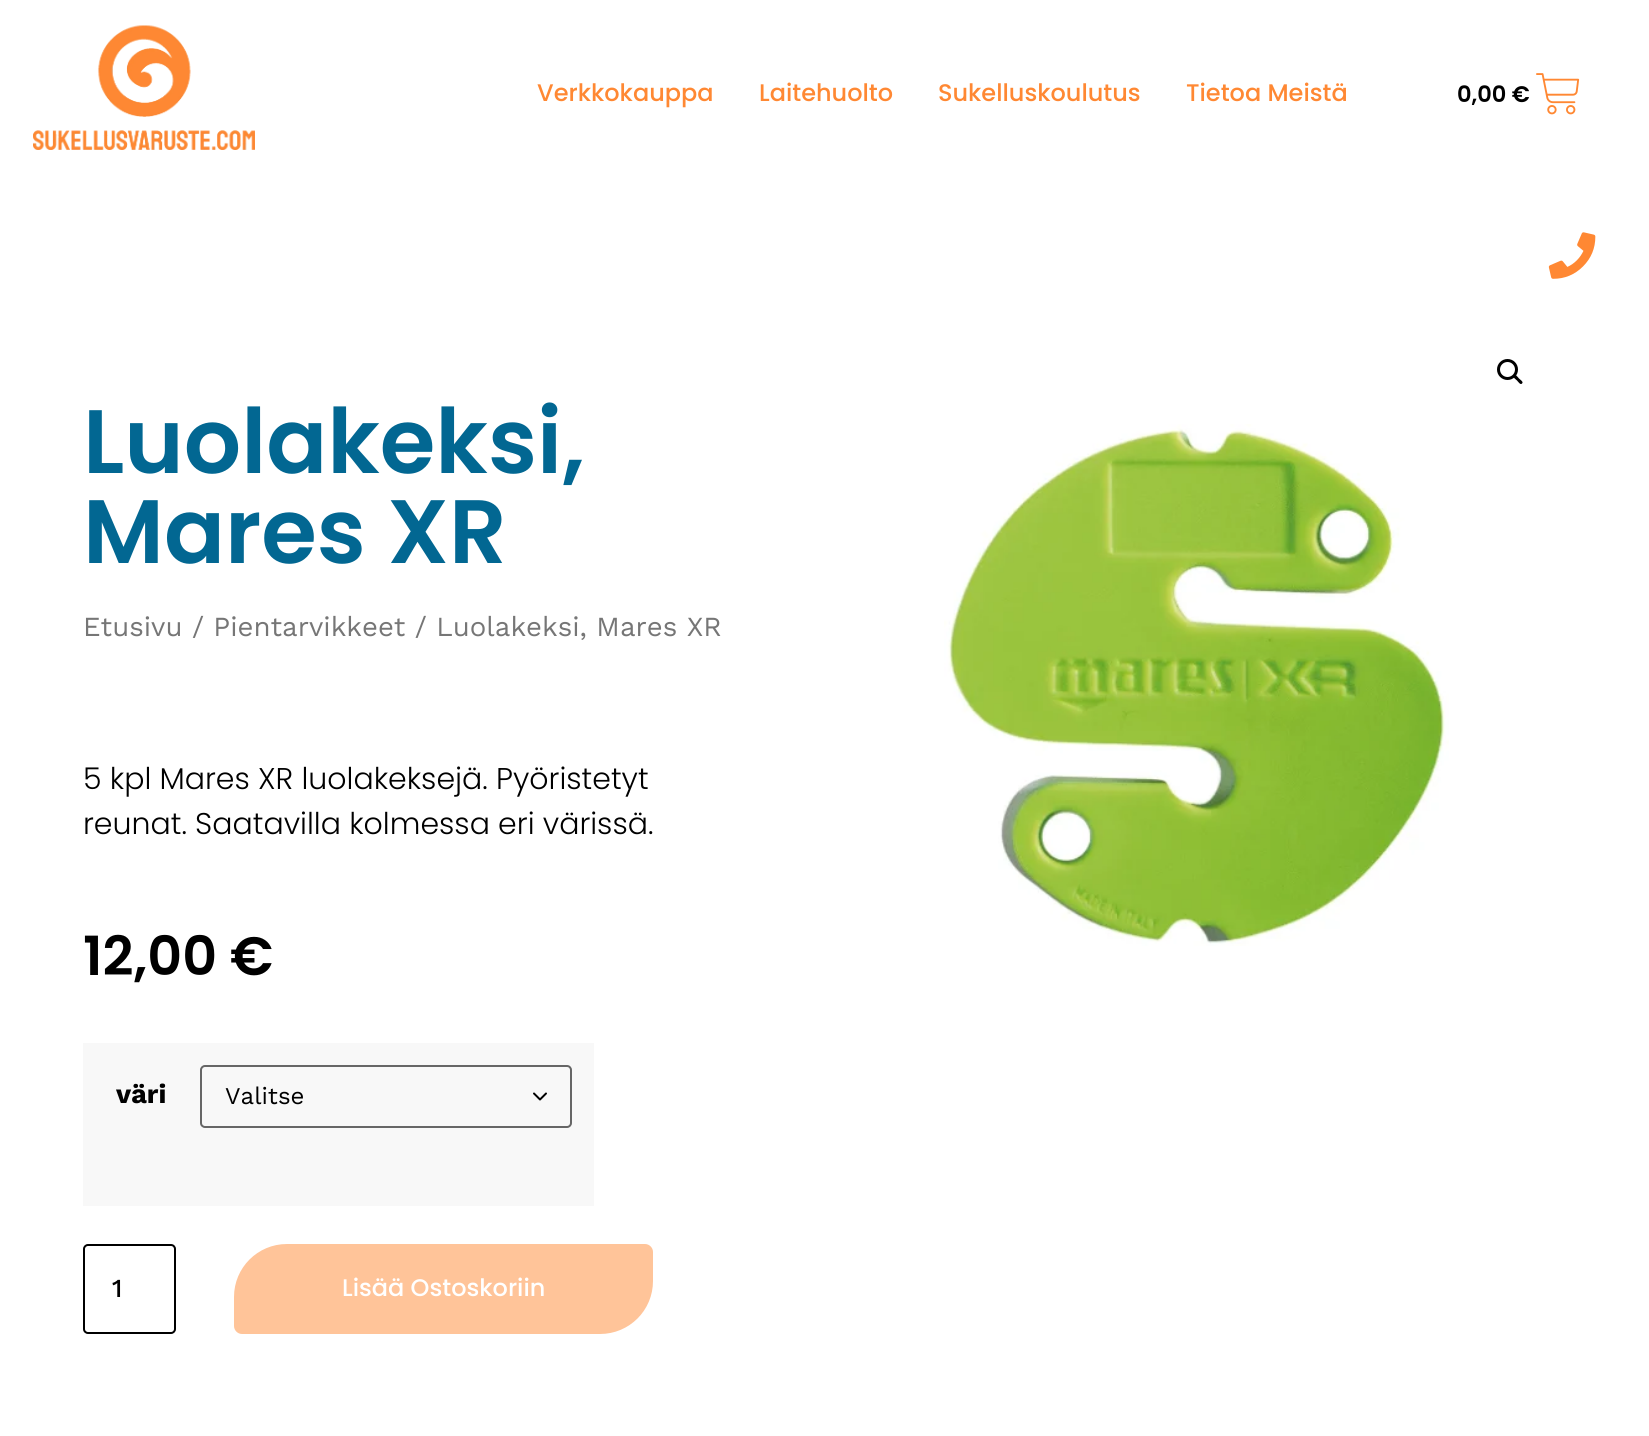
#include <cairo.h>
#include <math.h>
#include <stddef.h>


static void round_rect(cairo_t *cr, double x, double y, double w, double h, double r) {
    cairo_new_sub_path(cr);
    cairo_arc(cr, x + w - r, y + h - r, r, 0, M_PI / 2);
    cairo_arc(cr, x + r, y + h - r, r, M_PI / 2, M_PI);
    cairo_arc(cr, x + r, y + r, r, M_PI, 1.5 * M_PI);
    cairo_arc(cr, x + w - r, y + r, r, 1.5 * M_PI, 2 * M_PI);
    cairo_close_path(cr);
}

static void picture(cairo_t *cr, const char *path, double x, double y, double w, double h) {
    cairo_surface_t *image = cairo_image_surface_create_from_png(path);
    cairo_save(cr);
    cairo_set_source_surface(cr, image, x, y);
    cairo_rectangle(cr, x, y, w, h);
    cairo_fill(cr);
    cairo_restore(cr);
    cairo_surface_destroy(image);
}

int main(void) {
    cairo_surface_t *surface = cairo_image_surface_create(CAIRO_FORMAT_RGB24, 1649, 1436);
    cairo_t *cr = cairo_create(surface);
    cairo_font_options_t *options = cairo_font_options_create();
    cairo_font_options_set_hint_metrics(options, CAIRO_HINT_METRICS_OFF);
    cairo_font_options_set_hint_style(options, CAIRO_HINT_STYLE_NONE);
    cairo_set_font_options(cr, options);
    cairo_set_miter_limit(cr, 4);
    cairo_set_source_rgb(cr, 1, 1, 1);
    cairo_paint(cr);
    picture(cr, "img1.png", 33, 25, 222, 125);
    cairo_select_font_face(cr, "Poppins Medium", CAIRO_FONT_SLANT_NORMAL, CAIRO_FONT_WEIGHT_NORMAL);
    cairo_set_font_size(cr, 24);
    cairo_set_source_rgb(cr, 1, 0.533, 0.2);
    cairo_move_to(cr, 537, 101);
    cairo_show_text(cr, "Verkkokauppa");
    cairo_move_to(cr, 759, 101);
    cairo_show_text(cr, "Laitehuolto");
    cairo_move_to(cr, 938, 101);
    cairo_show_text(cr, "Sukelluskoulutus");
    cairo_move_to(cr, 1186, 101);
    cairo_show_text(cr, "Tietoa Meistä");
    cairo_select_font_face(cr, "Poppins SemiBold", CAIRO_FONT_SLANT_NORMAL, CAIRO_FONT_WEIGHT_NORMAL);
    cairo_set_font_size(cr, 22.5);
    cairo_set_source_rgb(cr, 0, 0, 0);
    cairo_move_to(cr, 1457, 102);
    cairo_show_text(cr, "0,00 €");
    picture(cr, "img2.png", 1536, 73, 44, 42);
    picture(cr, "img3.png", 1548, 232, 48, 47);
    cairo_set_font_size(cr, 90);
    cairo_set_source_rgb(cr, 0.008, 0.404, 0.573);
    cairo_move_to(cr, 83, 473);
    cairo_show_text(cr, "Luolakeksi,");
    cairo_move_to(cr, 83, 563);
    cairo_show_text(cr, "Mares XR");
    cairo_select_font_face(cr, "Work Sans", CAIRO_FONT_SLANT_NORMAL, CAIRO_FONT_WEIGHT_NORMAL);
    cairo_set_font_size(cr, 27.6);
    cairo_set_source_rgb(cr, 0.463, 0.463, 0.463);
    cairo_move_to(cr, 83, 636);
    cairo_show_text(cr, "Etusivu / Pientarvikkeet / Luolakeksi, Mares XR");
    cairo_select_font_face(cr, "Poppins Light", CAIRO_FONT_SLANT_NORMAL, CAIRO_FONT_WEIGHT_NORMAL);
    cairo_set_font_size(cr, 30);
    cairo_set_source_rgb(cr, 0, 0, 0);
    cairo_move_to(cr, 83, 789);
    cairo_show_text(cr, "5 kpl Mares XR luolakeksejä. Pyöristetyt");
    cairo_move_to(cr, 83, 834);
    cairo_show_text(cr, "reunat. Saatavilla kolmessa eri värissä.");
    cairo_select_font_face(cr, "Poppins SemiBold", CAIRO_FONT_SLANT_NORMAL, CAIRO_FONT_WEIGHT_NORMAL);
    cairo_set_font_size(cr, 54);
    cairo_move_to(cr, 83, 975);
    cairo_show_text(cr, "12,00 €");
    cairo_set_source_rgb(cr, 0.969, 0.969, 0.969);
    cairo_rectangle(cr, 83, 1043, 511, 163);
    cairo_fill(cr);
    cairo_select_font_face(cr, "Work Sans", CAIRO_FONT_SLANT_NORMAL, CAIRO_FONT_WEIGHT_BOLD);
    cairo_set_font_size(cr, 27);
    cairo_set_source_rgb(cr, 0, 0, 0);
    cairo_move_to(cr, 116, 1103);
    cairo_show_text(cr, "väri");
    cairo_new_path(cr);
    cairo_move_to(cr, 534, 1093.5);
    cairo_line_to(cr, 540, 1099.5);
    cairo_line_to(cr, 546, 1093.5);
    cairo_set_line_cap(cr, CAIRO_LINE_CAP_ROUND);
    cairo_set_line_join(cr, CAIRO_LINE_JOIN_ROUND);
    cairo_stroke(cr);
    round_rect(cr, 201, 1066, 370, 61, 4);
    cairo_set_source_rgb(cr, 0.4, 0.4, 0.4);
    cairo_set_line_cap(cr, CAIRO_LINE_CAP_BUTT);
    cairo_set_line_join(cr, CAIRO_LINE_JOIN_MITER);
    cairo_stroke(cr);
    cairo_select_font_face(cr, "Work Sans", CAIRO_FONT_SLANT_NORMAL, CAIRO_FONT_WEIGHT_NORMAL);
    cairo_set_font_size(cr, 24);
    cairo_set_source_rgb(cr, 0, 0, 0);
    cairo_move_to(cr, 225, 1104);
    cairo_show_text(cr, "Valitse");
    round_rect(cr, 84, 1245, 91, 88, 4);
    cairo_stroke(cr);
    cairo_select_font_face(cr, "Work Sans Medium", CAIRO_FONT_SLANT_NORMAL, CAIRO_FONT_WEIGHT_NORMAL);
    cairo_set_font_size(cr, 26);
    cairo_move_to(cr, 112, 1297);
    cairo_show_text(cr, "1");
    cairo_set_source_rgb(cr, 1, 0.769, 0.6);
    cairo_new_path(cr);
    cairo_move_to(cr, 287, 1245.5);
    cairo_line_to(cr, 645, 1245.5);
    cairo_curve_to(cr, 648.5, 1245.5, 651.5, 1248.5, 651.5, 1252);
    cairo_line_to(cr, 651.5, 1281);
    cairo_curve_to(cr, 651.5, 1309.5, 628.5, 1332.5, 600, 1332.5);
    cairo_line_to(cr, 242, 1332.5);
    cairo_curve_to(cr, 238.5, 1332.5, 235.5, 1329.5, 235.5, 1326);
    cairo_line_to(cr, 235.5, 1297);
    cairo_curve_to(cr, 235.5, 1268.5, 258.5, 1245.5, 287, 1245.5);
    cairo_close_path(cr);
    cairo_fill_preserve(cr);
    cairo_set_line_width(cr, 3);
    cairo_stroke(cr);
    cairo_select_font_face(cr, "Poppins Medium", CAIRO_FONT_SLANT_NORMAL, CAIRO_FONT_WEIGHT_NORMAL);
    cairo_set_font_size(cr, 24);
    cairo_set_source_rgb(cr, 1, 1, 1);
    cairo_move_to(cr, 342, 1296);
    cairo_show_text(cr, "Lisää Ostoskoriin");
    cairo_new_path(cr);
    cairo_arc(cr, 1507.5, 369.5, 9, 0, 2 * M_PI);
    cairo_set_source_rgb(cr, 0, 0, 0);
    cairo_stroke(cr);
    cairo_new_path(cr);
    cairo_move_to(cr, 1514, 375.5);
    cairo_curve_to(cr, 1515.5, 373.5, 1518, 377.5, 1519, 378.5);
    cairo_curve_to(cr, 1520, 379.5, 1524, 382, 1522, 383.5);
    cairo_curve_to(cr, 1520.5, 385.5, 1518, 381.5, 1517, 380.5);
    cairo_curve_to(cr, 1516, 379.5, 1512, 377, 1514, 375.5);
    cairo_close_path(cr);
    cairo_fill(cr);
    picture(cr, "img4.png", 944, 424, 505, 522);
    cairo_surface_write_to_png(surface, "page.png");
    cairo_font_options_destroy(options);
    cairo_destroy(cr);
    cairo_surface_destroy(surface);
    return 0;
}
